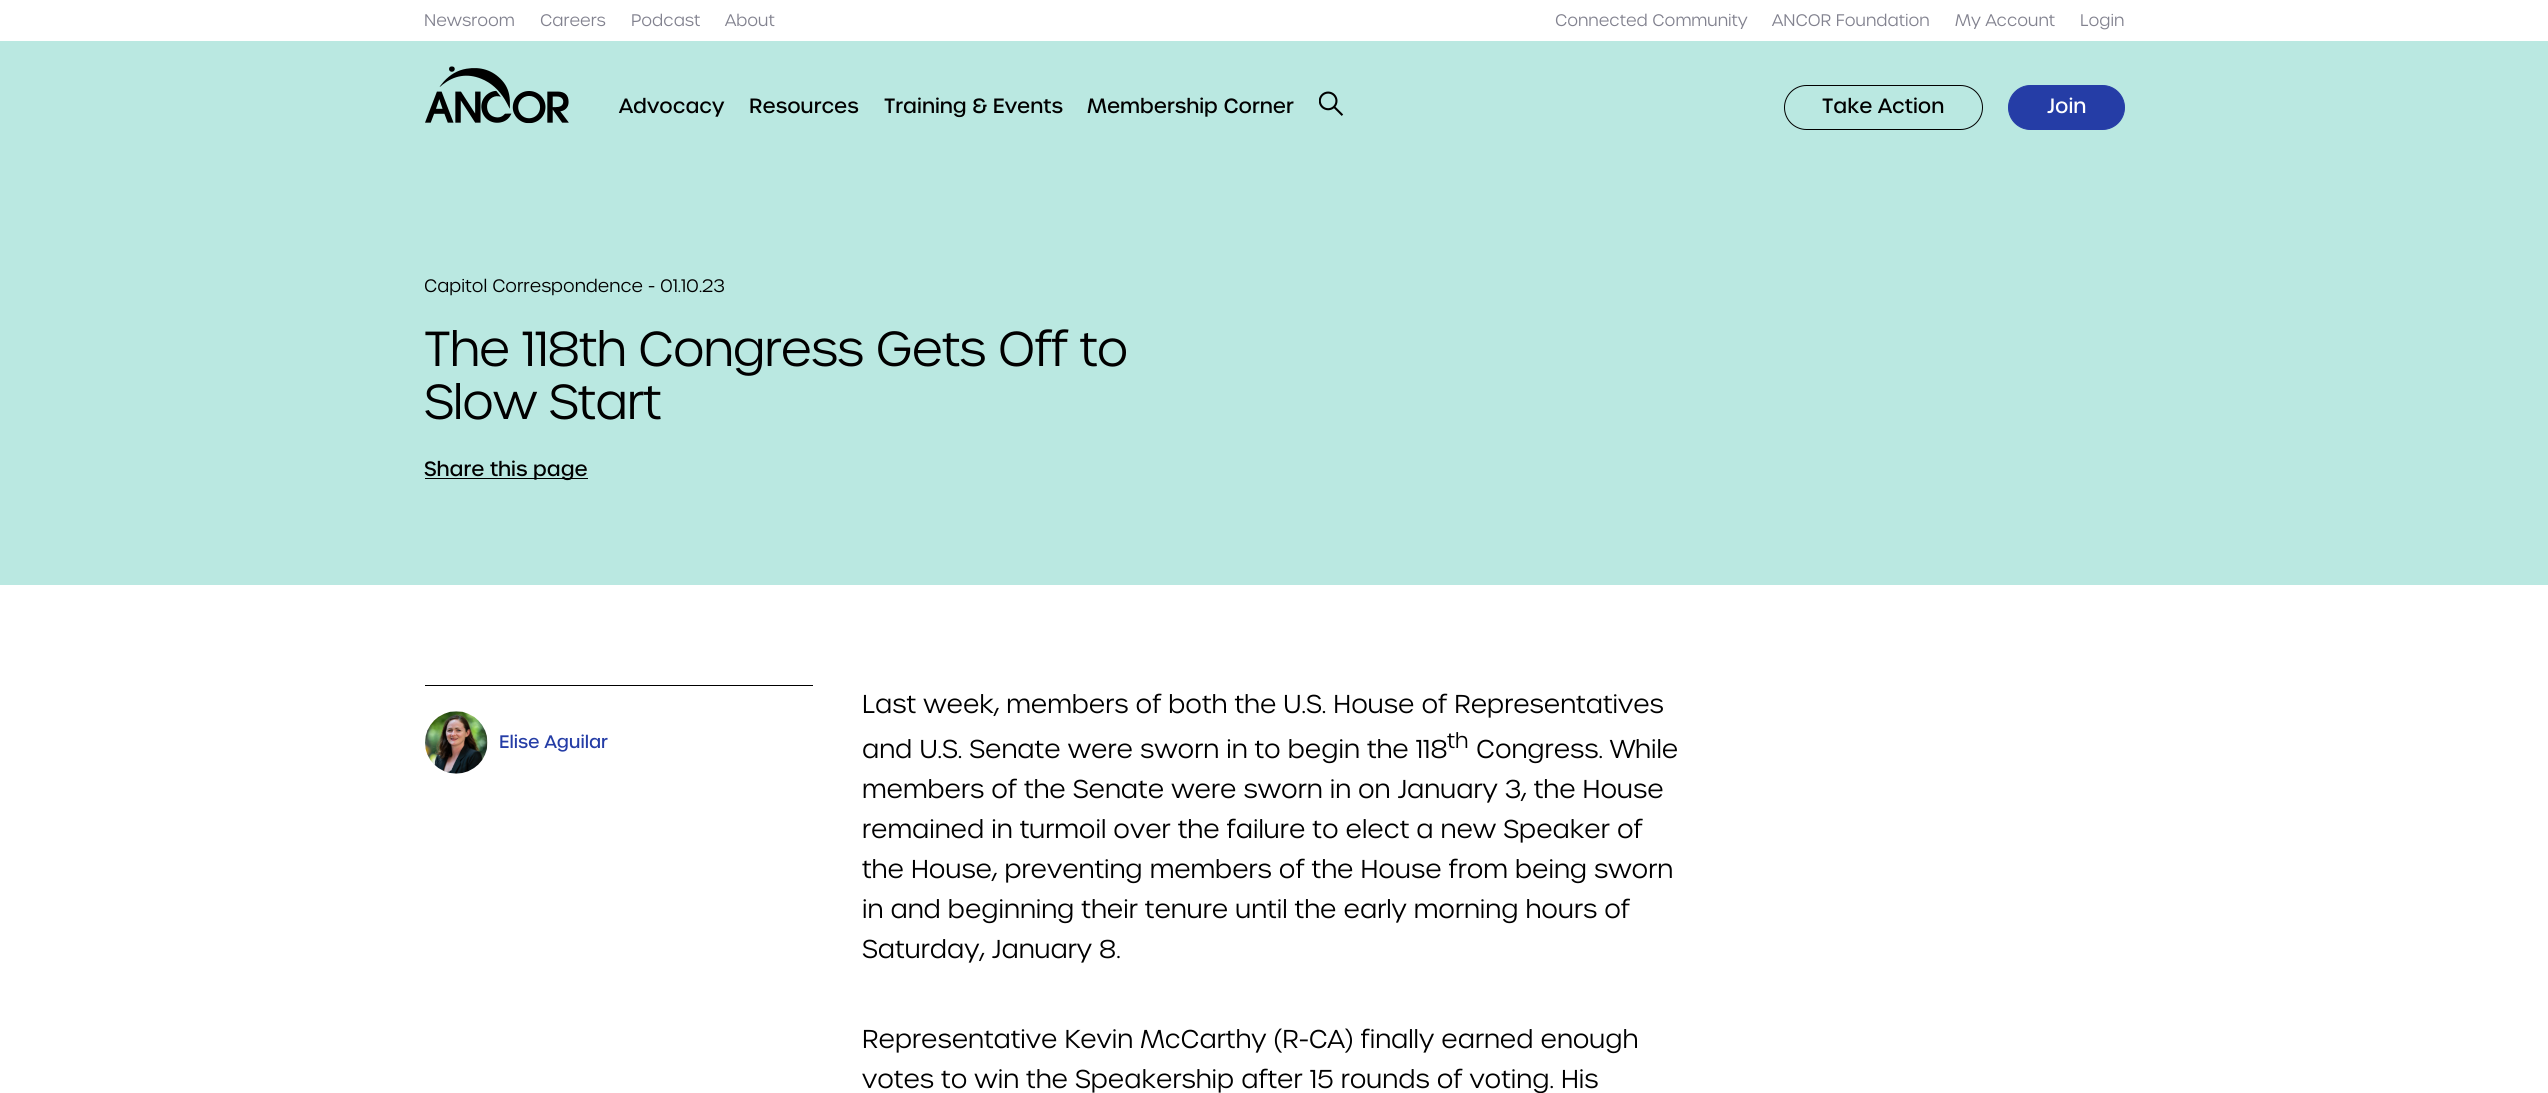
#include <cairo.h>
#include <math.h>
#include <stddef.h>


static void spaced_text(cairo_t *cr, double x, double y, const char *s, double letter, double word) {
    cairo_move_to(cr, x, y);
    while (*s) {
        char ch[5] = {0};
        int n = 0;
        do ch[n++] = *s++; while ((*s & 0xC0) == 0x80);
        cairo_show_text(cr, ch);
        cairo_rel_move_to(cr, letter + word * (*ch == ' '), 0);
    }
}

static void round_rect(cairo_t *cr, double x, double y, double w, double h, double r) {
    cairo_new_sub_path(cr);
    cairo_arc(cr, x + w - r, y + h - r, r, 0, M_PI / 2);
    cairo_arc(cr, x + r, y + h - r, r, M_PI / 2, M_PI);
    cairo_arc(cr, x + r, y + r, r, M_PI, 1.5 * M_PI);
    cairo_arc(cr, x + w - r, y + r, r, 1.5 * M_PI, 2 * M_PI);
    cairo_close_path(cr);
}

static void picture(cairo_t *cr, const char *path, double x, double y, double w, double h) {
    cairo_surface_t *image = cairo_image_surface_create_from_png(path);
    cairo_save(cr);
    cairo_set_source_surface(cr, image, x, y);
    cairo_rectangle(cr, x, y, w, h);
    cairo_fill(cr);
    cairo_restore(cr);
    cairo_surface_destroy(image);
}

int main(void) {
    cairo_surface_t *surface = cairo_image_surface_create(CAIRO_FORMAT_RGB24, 2548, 1093);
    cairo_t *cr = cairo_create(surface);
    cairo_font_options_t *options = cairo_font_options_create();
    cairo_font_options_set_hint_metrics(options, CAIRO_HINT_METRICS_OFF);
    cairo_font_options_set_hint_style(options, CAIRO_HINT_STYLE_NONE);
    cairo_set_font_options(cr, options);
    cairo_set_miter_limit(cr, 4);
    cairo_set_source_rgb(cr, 1, 1, 1);
    cairo_paint(cr);
    cairo_select_font_face(cr, "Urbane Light", CAIRO_FONT_SLANT_NORMAL, CAIRO_FONT_WEIGHT_NORMAL);
    cairo_set_font_size(cr, 16.25);
    cairo_set_source_rgb(cr, 0.51, 0.51, 0.561);
    cairo_move_to(cr, 424, 26);
    cairo_show_text(cr, "Newsroom");
    cairo_move_to(cr, 540, 26);
    cairo_show_text(cr, "Careers");
    cairo_move_to(cr, 631, 26);
    cairo_show_text(cr, "Podcast");
    cairo_move_to(cr, 725, 26);
    cairo_show_text(cr, "About");
    cairo_move_to(cr, 1555, 26);
    cairo_show_text(cr, "Connected Community");
    cairo_move_to(cr, 1772, 26);
    cairo_show_text(cr, "ANCOR Foundation");
    cairo_move_to(cr, 1955, 26);
    cairo_show_text(cr, "My Account");
    cairo_move_to(cr, 2080, 26);
    cairo_show_text(cr, "Login");
    cairo_set_source_rgb(cr, 0.729, 0.91, 0.882);
    cairo_rectangle(cr, 0, 41, 2548, 544);
    cairo_fill(cr);
    picture(cr, "img1.png", 425, 66, 144, 58);
    cairo_select_font_face(cr, "Urbane Medium", CAIRO_FONT_SLANT_NORMAL, CAIRO_FONT_WEIGHT_NORMAL);
    cairo_set_font_size(cr, 20);
    cairo_set_source_rgb(cr, 0, 0, 0);
    cairo_move_to(cr, 619, 113);
    cairo_show_text(cr, "Advocacy");
    cairo_move_to(cr, 749, 113);
    cairo_show_text(cr, "Resources");
    cairo_move_to(cr, 884, 113);
    cairo_show_text(cr, "Training & Events");
    cairo_move_to(cr, 1087, 113);
    cairo_show_text(cr, "Membership Corner");
    picture(cr, "img2.png", 1319, 91, 25, 25);
    round_rect(cr, 1784.5, 85.5, 198, 44, 22);
    cairo_set_line_width(cr, 1);
    cairo_stroke(cr);
    cairo_move_to(cr, 1822, 113);
    cairo_show_text(cr, "Take Action");
    cairo_set_source_rgb(cr, 0.145, 0.239, 0.651);
    round_rect(cr, 2008.5, 85.5, 116, 44, 22);
    cairo_fill_preserve(cr);
    cairo_stroke(cr);
    cairo_set_source_rgb(cr, 1, 1, 1);
    cairo_move_to(cr, 2047, 113);
    cairo_show_text(cr, "Join");
    cairo_select_font_face(cr, "Urbane Light", CAIRO_FONT_SLANT_NORMAL, CAIRO_FONT_WEIGHT_NORMAL);
    cairo_set_font_size(cr, 17.5);
    cairo_set_source_rgb(cr, 0, 0, 0);
    cairo_move_to(cr, 424, 292);
    cairo_show_text(cr, "Capitol Correspondence - 01.10.23");
    cairo_set_font_size(cr, 47.5);
    spaced_text(cr, 424, 366, "The 118th Congress Gets Off to", -0.95, 0);
    spaced_text(cr, 424, 419, "Slow Start", -0.95, 0);
    cairo_rectangle(cr, 425, 478, 163, 1);
    cairo_fill(cr);
    cairo_select_font_face(cr, "Urbane Medium", CAIRO_FONT_SLANT_NORMAL, CAIRO_FONT_WEIGHT_NORMAL);
    cairo_set_font_size(cr, 20);
    cairo_move_to(cr, 424, 476);
    cairo_show_text(cr, "Share this page");
    cairo_rectangle(cr, 425, 685, 388, 1);
    cairo_fill(cr);
    picture(cr, "img3.png", 425, 711, 63, 63);
    cairo_set_font_size(cr, 17.5);
    cairo_set_source_rgb(cr, 0.145, 0.239, 0.651);
    cairo_move_to(cr, 499, 748);
    cairo_show_text(cr, "Elise Aguilar");
    cairo_select_font_face(cr, "Urbane Light", CAIRO_FONT_SLANT_NORMAL, CAIRO_FONT_WEIGHT_NORMAL);
    cairo_set_font_size(cr, 25);
    cairo_set_source_rgb(cr, 0, 0, 0);
    cairo_move_to(cr, 862, 713);
    cairo_show_text(cr, "Last week, members of both the U.S. House of Representatives");
    cairo_move_to(cr, 862, 758);
    cairo_show_text(cr, "and U.S. Senate were sworn in to begin the 118");
    cairo_set_font_size(cr, 21);
    cairo_move_to(cr, 1447, 748);
    cairo_show_text(cr, "th");
    cairo_set_font_size(cr, 25);
    cairo_move_to(cr, 1476, 758);
    cairo_show_text(cr, "Congress. While");
    cairo_move_to(cr, 862, 798);
    cairo_show_text(cr, "members of the Senate were sworn in on January 3, the House");
    cairo_move_to(cr, 862, 838);
    cairo_show_text(cr, "remained in turmoil over the failure to elect a new Speaker of");
    cairo_move_to(cr, 862, 878);
    cairo_show_text(cr, "the House, preventing members of the House from being sworn");
    cairo_move_to(cr, 862, 918);
    cairo_show_text(cr, "in and beginning their tenure until the early morning hours of");
    cairo_move_to(cr, 862, 958);
    cairo_show_text(cr, "Saturday, January 8.");
    cairo_move_to(cr, 862, 1048);
    cairo_show_text(cr, "Representative Kevin McCarthy (R-CA) finally earned enough");
    cairo_move_to(cr, 862, 1088);
    cairo_show_text(cr, "votes to win the Speakership after 15 rounds of voting. His");
    cairo_surface_write_to_png(surface, "page.png");
    cairo_font_options_destroy(options);
    cairo_destroy(cr);
    cairo_surface_destroy(surface);
    return 0;
}
